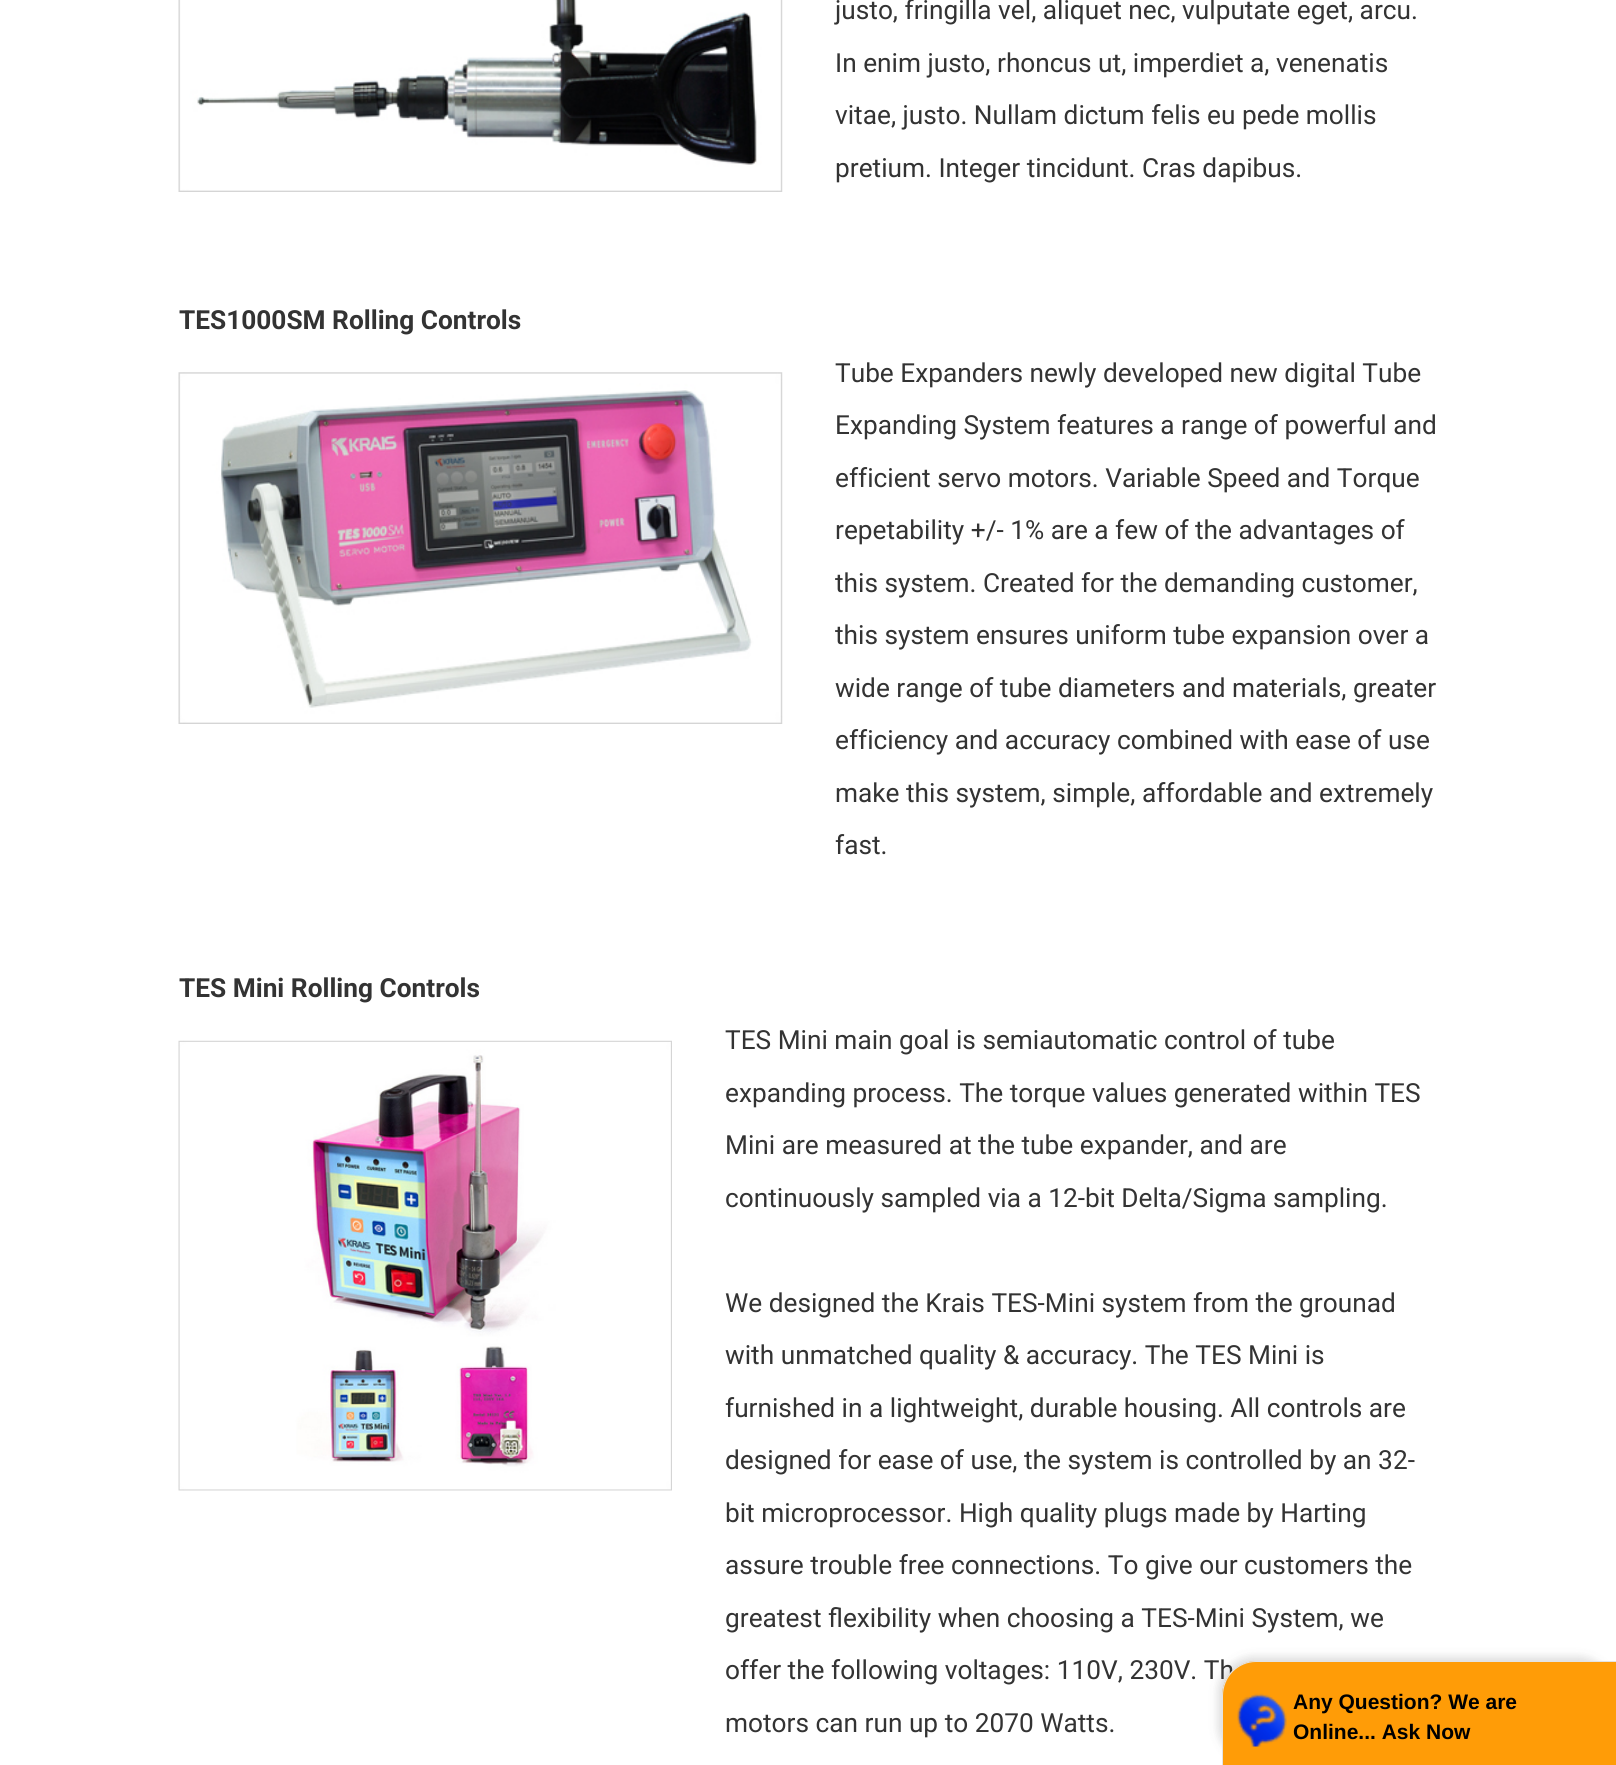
#include <cairo.h>
#include <math.h>
#include <stddef.h>


static void round_rect(cairo_t *cr, double x, double y, double w, double h, double r) {
    cairo_new_sub_path(cr);
    cairo_arc(cr, x + w - r, y + h - r, r, 0, M_PI / 2);
    cairo_arc(cr, x + r, y + h - r, r, M_PI / 2, M_PI);
    cairo_arc(cr, x + r, y + r, r, M_PI, 1.5 * M_PI);
    cairo_arc(cr, x + w - r, y + r, r, 1.5 * M_PI, 2 * M_PI);
    cairo_close_path(cr);
}

static void shadow(cairo_t *cr, double x, double y, double w, double h, double r, double blur, double alpha) {
    cairo_push_group_with_content(cr, CAIRO_CONTENT_ALPHA);
    cairo_set_operator(cr, CAIRO_OPERATOR_SOURCE);
    for (int i = 15; i >= -15 && fmin(w, h) + blur * i / 3 > 0; i -= 2) {
        double e = blur * i / 6;
        cairo_set_source_rgba(cr, 0, 0, 0, alpha * erfc((i - 1) / 8.5) / 2);
        round_rect(cr, x - e, y - e, w + 2 * e, h + 2 * e, fmax(0, fmin(r + e + blur * .6, fmin(w, h) / 2 + e)));
        cairo_fill(cr);
    }
    cairo_pattern_t *soft = cairo_pop_group(cr);
    cairo_mask(cr, soft);
    cairo_pattern_destroy(soft);
}

static void picture(cairo_t *cr, const char *path, double x, double y, double w, double h) {
    cairo_surface_t *image = cairo_image_surface_create_from_png(path);
    cairo_save(cr);
    cairo_set_source_surface(cr, image, x, y);
    cairo_rectangle(cr, x, y, w, h);
    cairo_fill(cr);
    cairo_restore(cr);
    cairo_surface_destroy(image);
}

int main(void) {
    cairo_surface_t *surface = cairo_image_surface_create(CAIRO_FORMAT_RGB24, 1616, 1765);
    cairo_t *cr = cairo_create(surface);
    cairo_font_options_t *options = cairo_font_options_create();
    cairo_font_options_set_hint_metrics(options, CAIRO_HINT_METRICS_OFF);
    cairo_font_options_set_hint_style(options, CAIRO_HINT_STYLE_NONE);
    cairo_set_font_options(cr, options);
    cairo_set_miter_limit(cr, 4);
    cairo_set_source_rgb(cr, 1, 1, 1);
    cairo_paint(cr);
    picture(cr, "img1.png", 178, 0, 605, 192);
    cairo_select_font_face(cr, "Roboto", CAIRO_FONT_SLANT_NORMAL, CAIRO_FONT_WEIGHT_NORMAL);
    cairo_set_font_size(cr, 26.25);
    cairo_set_source_rgb(cr, 0.2, 0.2, 0.2);
    cairo_move_to(cr, 835, 19);
    cairo_show_text(cr, "justo, fringilla vel, aliquet nec, vulputate eget, arcu.");
    cairo_move_to(cr, 835, 72);
    cairo_show_text(cr, "In enim justo, rhoncus ut, imperdiet a, venenatis");
    cairo_move_to(cr, 835, 124);
    cairo_show_text(cr, "vitae, justo. Nullam dictum felis eu pede mollis");
    cairo_move_to(cr, 835, 177);
    cairo_show_text(cr, "pretium. Integer tincidunt. Cras dapibus.");
    cairo_select_font_face(cr, "Roboto", CAIRO_FONT_SLANT_NORMAL, CAIRO_FONT_WEIGHT_BOLD);
    cairo_move_to(cr, 179, 329);
    cairo_show_text(cr, "TES1000SM Rolling Controls");
    picture(cr, "img2.png", 178, 372, 605, 352);
    cairo_select_font_face(cr, "Roboto", CAIRO_FONT_SLANT_NORMAL, CAIRO_FONT_WEIGHT_NORMAL);
    cairo_move_to(cr, 835, 382);
    cairo_show_text(cr, "Tube Expanders newly developed new digital Tube");
    cairo_move_to(cr, 835, 434);
    cairo_show_text(cr, "Expanding System features a range of powerful and");
    cairo_move_to(cr, 835, 487);
    cairo_show_text(cr, "efficient servo motors. Variable Speed and Torque");
    cairo_move_to(cr, 835, 539);
    cairo_show_text(cr, "repetability +/- 1% are a few of the advantages of");
    cairo_move_to(cr, 835, 592);
    cairo_show_text(cr, "this system. Created for the demanding customer,");
    cairo_move_to(cr, 835, 644);
    cairo_show_text(cr, "this system ensures uniform tube expansion over a");
    cairo_move_to(cr, 835, 697);
    cairo_show_text(cr, "wide range of tube diameters and materials, greater");
    cairo_move_to(cr, 835, 749);
    cairo_show_text(cr, "efficiency and accuracy combined with ease of use");
    cairo_move_to(cr, 835, 802);
    cairo_show_text(cr, "make this system, simple, affordable and extremely");
    cairo_move_to(cr, 835, 854);
    cairo_show_text(cr, "fast.");
    cairo_select_font_face(cr, "Roboto", CAIRO_FONT_SLANT_NORMAL, CAIRO_FONT_WEIGHT_BOLD);
    cairo_move_to(cr, 179, 997);
    cairo_show_text(cr, "TES Mini Rolling Controls");
    picture(cr, "img3.png", 178, 1040, 494, 451);
    cairo_select_font_face(cr, "Roboto", CAIRO_FONT_SLANT_NORMAL, CAIRO_FONT_WEIGHT_NORMAL);
    cairo_move_to(cr, 725, 1049);
    cairo_show_text(cr, "TES Mini main goal is semiautomatic control of tube");
    cairo_move_to(cr, 725, 1102);
    cairo_show_text(cr, "expanding process. The torque values generated within TES");
    cairo_move_to(cr, 725, 1154);
    cairo_show_text(cr, "Mini are measured at the tube expander, and are");
    cairo_move_to(cr, 725, 1207);
    cairo_show_text(cr, "continuously sampled via a 12-bit Delta/Sigma sampling.");
    cairo_move_to(cr, 725, 1312);
    cairo_show_text(cr, "We designed the Krais TES-Mini system from the grounad");
    cairo_move_to(cr, 725, 1364);
    cairo_show_text(cr, "with unmatched quality & accuracy. The TES Mini is");
    cairo_move_to(cr, 725, 1417);
    cairo_show_text(cr, "furnished in a lightweight, durable housing. All controls are");
    cairo_move_to(cr, 725, 1469);
    cairo_show_text(cr, "designed for ease of use, the system is controlled by an 32-");
    cairo_move_to(cr, 725, 1522);
    cairo_show_text(cr, "bit microprocessor. High quality plugs made by Harting");
    cairo_move_to(cr, 725, 1574);
    cairo_show_text(cr, "assure trouble free connections. To give our customers the");
    cairo_move_to(cr, 725, 1627);
    cairo_show_text(cr, "greatest ﬂexibility when choosing a TES-Mini System, we");
    cairo_move_to(cr, 725, 1679);
    cairo_show_text(cr, "offer the following voltages: 110V, 230V. Th");
    cairo_move_to(cr, 725, 1732);
    cairo_show_text(cr, "motors can run up to 2070 Watts.");
    cairo_set_source_rgb(cr, 0.196, 0.196, 0.196);
    shadow(cr, 1218, 1657, 396, 105, 35, 4.5, 0.17);
    cairo_set_source_rgb(cr, 1, 0.612, 0.031);
    cairo_new_path(cr);
    cairo_move_to(cr, 1257, 1661);
    cairo_line_to(cr, 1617, 1661);
    cairo_line_to(cr, 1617, 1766);
    cairo_line_to(cr, 1222, 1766);
    cairo_line_to(cr, 1222, 1696);
    cairo_curve_to(cr, 1222, 1676.5, 1237.5, 1661, 1257, 1661);
    cairo_close_path(cr);
    cairo_fill(cr);
    cairo_set_source_rgb(cr, 0.89, 0.89, 0.89);
    cairo_set_fill_rule(cr, CAIRO_FILL_RULE_EVEN_ODD);
    cairo_new_path(cr);
    cairo_move_to(cr, 1256, 1661);
    cairo_line_to(cr, 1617, 1661);
    cairo_line_to(cr, 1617, 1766);
    cairo_line_to(cr, 1222, 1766);
    cairo_line_to(cr, 1222, 1696);
    cairo_curve_to(cr, 1222, 1676, 1237, 1661, 1256, 1661);
    cairo_close_path(cr);
    cairo_move_to(cr, 1256, 1662);
    cairo_line_to(cr, 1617, 1662);
    cairo_line_to(cr, 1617, 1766);
    cairo_line_to(cr, 1223, 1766);
    cairo_line_to(cr, 1223, 1696);
    cairo_curve_to(cr, 1223, 1677, 1238, 1662, 1256, 1662);
    cairo_close_path(cr);
    cairo_fill(cr);
    picture(cr, "img4.png", 1237, 1693, 50, 54);
    cairo_select_font_face(cr, "Liberation Sans", CAIRO_FONT_SLANT_NORMAL, CAIRO_FONT_WEIGHT_BOLD);
    cairo_set_font_size(cr, 21);
    cairo_set_source_rgb(cr, 0, 0, 0);
    cairo_move_to(cr, 1293, 1709);
    cairo_show_text(cr, "Any Question? We are");
    cairo_move_to(cr, 1293, 1739);
    cairo_show_text(cr, "Online... Ask Now");
    cairo_surface_write_to_png(surface, "page.png");
    cairo_font_options_destroy(options);
    cairo_destroy(cr);
    cairo_surface_destroy(surface);
    return 0;
}
